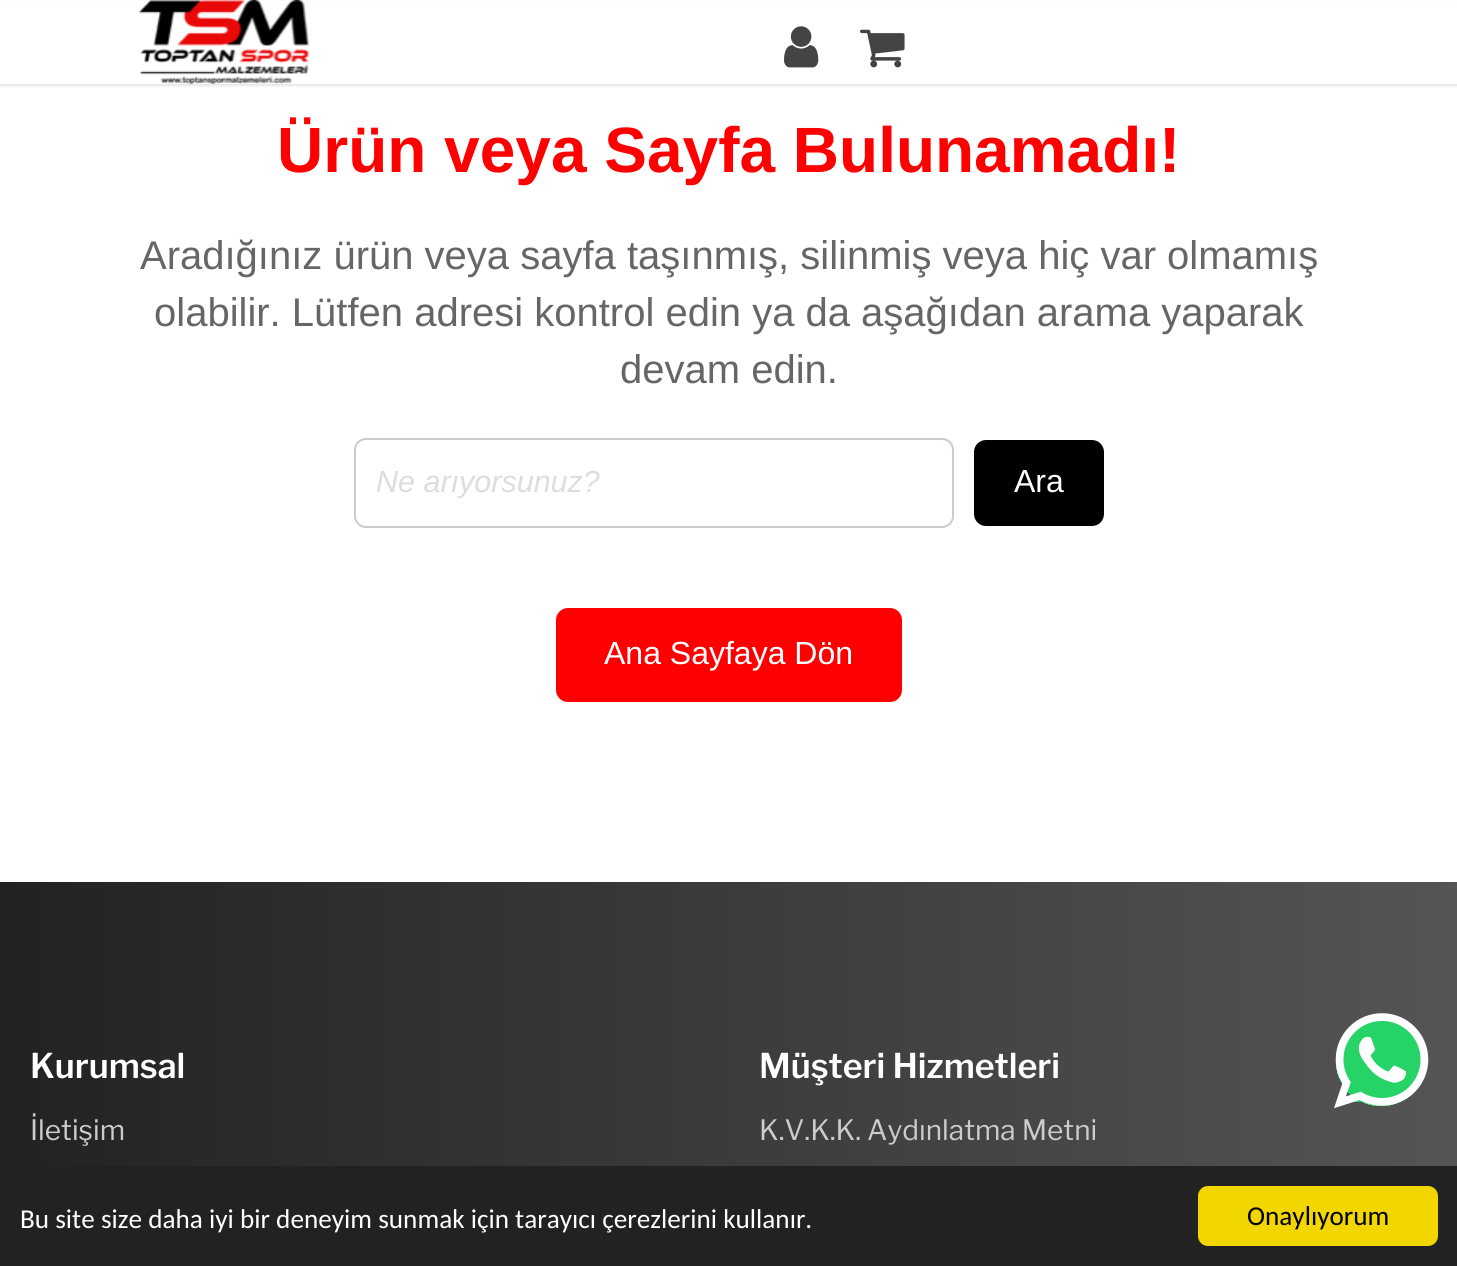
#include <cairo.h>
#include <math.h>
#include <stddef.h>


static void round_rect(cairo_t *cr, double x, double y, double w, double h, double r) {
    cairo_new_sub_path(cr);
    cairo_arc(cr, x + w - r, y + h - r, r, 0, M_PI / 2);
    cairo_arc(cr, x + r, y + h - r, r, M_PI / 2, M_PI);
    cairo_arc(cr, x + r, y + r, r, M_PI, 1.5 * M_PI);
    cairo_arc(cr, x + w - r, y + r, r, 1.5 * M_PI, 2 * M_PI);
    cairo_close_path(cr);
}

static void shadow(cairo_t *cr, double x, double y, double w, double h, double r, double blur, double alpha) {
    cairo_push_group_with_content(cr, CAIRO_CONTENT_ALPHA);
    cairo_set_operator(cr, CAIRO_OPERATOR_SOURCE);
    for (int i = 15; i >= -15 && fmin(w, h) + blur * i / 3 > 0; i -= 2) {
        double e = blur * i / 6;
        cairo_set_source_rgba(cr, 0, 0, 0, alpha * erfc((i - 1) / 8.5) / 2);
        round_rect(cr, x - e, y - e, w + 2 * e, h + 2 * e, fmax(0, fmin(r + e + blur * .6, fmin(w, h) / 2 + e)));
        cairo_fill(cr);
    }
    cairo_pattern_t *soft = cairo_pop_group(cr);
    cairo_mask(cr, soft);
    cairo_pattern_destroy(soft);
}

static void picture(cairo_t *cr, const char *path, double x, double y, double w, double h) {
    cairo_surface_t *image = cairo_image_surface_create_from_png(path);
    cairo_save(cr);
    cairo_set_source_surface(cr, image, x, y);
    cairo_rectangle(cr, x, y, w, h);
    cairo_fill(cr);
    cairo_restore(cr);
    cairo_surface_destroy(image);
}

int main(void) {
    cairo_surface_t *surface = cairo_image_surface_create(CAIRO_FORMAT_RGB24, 1457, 1266);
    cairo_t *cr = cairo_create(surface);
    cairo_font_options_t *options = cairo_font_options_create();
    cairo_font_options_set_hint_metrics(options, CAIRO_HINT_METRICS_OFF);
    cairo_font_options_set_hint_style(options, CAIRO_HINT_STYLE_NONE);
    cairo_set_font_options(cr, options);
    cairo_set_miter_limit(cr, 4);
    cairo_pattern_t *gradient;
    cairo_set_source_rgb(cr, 1, 1, 1);
    cairo_paint(cr);
    cairo_set_source_rgb(cr, 0, 0, 0);
    shadow(cr, 0, 2, 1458, 84, 0, 1, 0.1);
    cairo_set_source_rgb(cr, 1, 1, 1);
    cairo_rectangle(cr, 0, 1, 1457, 83);
    cairo_fill(cr);
    picture(cr, "img1.png", 139, 0, 170, 84);
    picture(cr, "img2.png", 784, 26, 35, 42);
    picture(cr, "img3.png", 860, 29, 45, 39);
    cairo_select_font_face(cr, "Liberation Sans", CAIRO_FONT_SLANT_NORMAL, CAIRO_FONT_WEIGHT_BOLD);
    cairo_set_font_size(cr, 64);
    cairo_set_source_rgb(cr, 1, 0, 0);
    cairo_move_to(cr, 277, 172);
    cairo_show_text(cr, "Ürün veya Sayfa Bulunamadı!");
    cairo_select_font_face(cr, "Liberation Sans", CAIRO_FONT_SLANT_NORMAL, CAIRO_FONT_WEIGHT_NORMAL);
    cairo_set_font_size(cr, 40);
    cairo_set_source_rgb(cr, 0.4, 0.4, 0.4);
    cairo_move_to(cr, 140, 269);
    cairo_show_text(cr, "Aradığınız ürün veya sayfa taşınmış, silinmiş veya hiç var olmamış");
    cairo_move_to(cr, 154, 326);
    cairo_show_text(cr, "olabilir. Lütfen adresi kontrol edin ya da aşağıdan arama yaparak");
    cairo_move_to(cr, 620, 383);
    cairo_show_text(cr, "devam edin.");
    round_rect(cr, 355, 439, 598, 88, 11);
    cairo_set_source_rgb(cr, 0.8, 0.8, 0.8);
    cairo_stroke(cr);
    cairo_save(cr);
    cairo_rectangle(cr, 376, 460, 556, 38);
    cairo_clip(cr);
    cairo_select_font_face(cr, "Liberation Sans", CAIRO_FONT_SLANT_ITALIC, CAIRO_FONT_WEIGHT_NORMAL);
    cairo_set_font_size(cr, 30.5);
    cairo_set_source_rgb(cr, 0.867, 0.867, 0.867);
    cairo_move_to(cr, 376, 492);
    cairo_show_text(cr, "Ne arıyorsunuz?");
    cairo_restore(cr);
    cairo_set_source_rgb(cr, 0, 0, 0);
    round_rect(cr, 974, 440, 130, 86, 12);
    cairo_fill(cr);
    cairo_set_font_size(cr, 32);
    cairo_set_source_rgb(cr, 1, 1, 1);
    cairo_move_to(cr, 1014, 492);
    cairo_show_text(cr, "Ara");
    cairo_set_source_rgb(cr, 1, 0, 0);
    round_rect(cr, 556, 608, 346, 94, 12);
    cairo_fill(cr);
    cairo_set_source_rgb(cr, 1, 1, 1);
    cairo_move_to(cr, 604, 664);
    cairo_show_text(cr, "Ana Sayfaya Dön");
    gradient = cairo_pattern_create_linear(0, 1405, 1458, 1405);
    cairo_pattern_add_color_stop_rgba(gradient, 0, 0.133, 0.133, 0.133, 1);
    cairo_pattern_add_color_stop_rgba(gradient, 1, 0.333, 0.333, 0.333, 1);
    cairo_set_source(cr, gradient);
    cairo_pattern_destroy(gradient);
    cairo_rectangle(cr, 0, 882, 1457, 284);
    cairo_fill(cr);
    cairo_select_font_face(cr, "Libre Franklin SemiBold", CAIRO_FONT_SLANT_NORMAL, CAIRO_FONT_WEIGHT_NORMAL);
    cairo_set_font_size(cr, 34);
    cairo_set_source_rgb(cr, 1, 1, 1);
    cairo_move_to(cr, 30, 1078);
    cairo_show_text(cr, "Kurumsal");
    cairo_select_font_face(cr, "Libre Franklin", CAIRO_FONT_SLANT_NORMAL, CAIRO_FONT_WEIGHT_NORMAL);
    cairo_set_font_size(cr, 28);
    cairo_set_source_rgb(cr, 0.8, 0.8, 0.8);
    cairo_move_to(cr, 30, 1140);
    cairo_show_text(cr, "İletişim");
    cairo_select_font_face(cr, "Libre Franklin SemiBold", CAIRO_FONT_SLANT_NORMAL, CAIRO_FONT_WEIGHT_NORMAL);
    cairo_set_font_size(cr, 34);
    cairo_set_source_rgb(cr, 1, 1, 1);
    cairo_move_to(cr, 759, 1078);
    cairo_show_text(cr, "Müşteri Hizmetleri");
    cairo_select_font_face(cr, "Libre Franklin", CAIRO_FONT_SLANT_NORMAL, CAIRO_FONT_WEIGHT_NORMAL);
    cairo_set_font_size(cr, 28);
    cairo_set_source_rgb(cr, 0.8, 0.8, 0.8);
    cairo_move_to(cr, 759, 1140);
    cairo_show_text(cr, "K.V.K.K. Aydınlatma Metni");
    gradient = cairo_pattern_create_radial(1381, 1061, 0, 1381, 1061, 72);
    cairo_pattern_add_color_stop_rgba(gradient, 0.63, 0.145, 0.827, 0.4, 1);
    cairo_pattern_add_color_stop_rgba(gradient, 0.63, 0.145, 0.827, 0.4, 0);
    cairo_set_source(cr, gradient);
    cairo_pattern_destroy(gradient);
    cairo_rectangle(cr, 1336, 1020, 85, 86);
    cairo_fill(cr);
    cairo_set_source_rgb(cr, 0.145, 0.827, 0.4);
    cairo_rectangle(cr, 1354, 1098, 7, 4);
    cairo_fill(cr);
    picture(cr, "img4.png", 1334, 1013, 95, 96);
    cairo_set_source_rgb(cr, 0.133, 0.133, 0.133);
    cairo_rectangle(cr, 0, 1166, 1457, 100);
    cairo_fill(cr);
    cairo_select_font_face(cr, "Carlito", CAIRO_FONT_SLANT_NORMAL, CAIRO_FONT_WEIGHT_NORMAL);
    cairo_set_font_size(cr, 27.2);
    cairo_set_source_rgb(cr, 1, 1, 1);
    cairo_move_to(cr, 20, 1228);
    cairo_show_text(cr, "Bu site size daha iyi bir deneyim sunmak için tarayıcı çerezlerini kullanır.");
    cairo_set_source_rgb(cr, 0.945, 0.839, 0);
    round_rect(cr, 1198, 1186, 240, 60, 10);
    cairo_fill(cr);
    cairo_set_source_rgb(cr, 0, 0, 0);
    cairo_move_to(cr, 1247, 1225);
    cairo_show_text(cr, "Onaylıyorum");
    cairo_surface_write_to_png(surface, "page.png");
    cairo_font_options_destroy(options);
    cairo_destroy(cr);
    cairo_surface_destroy(surface);
    return 0;
}
